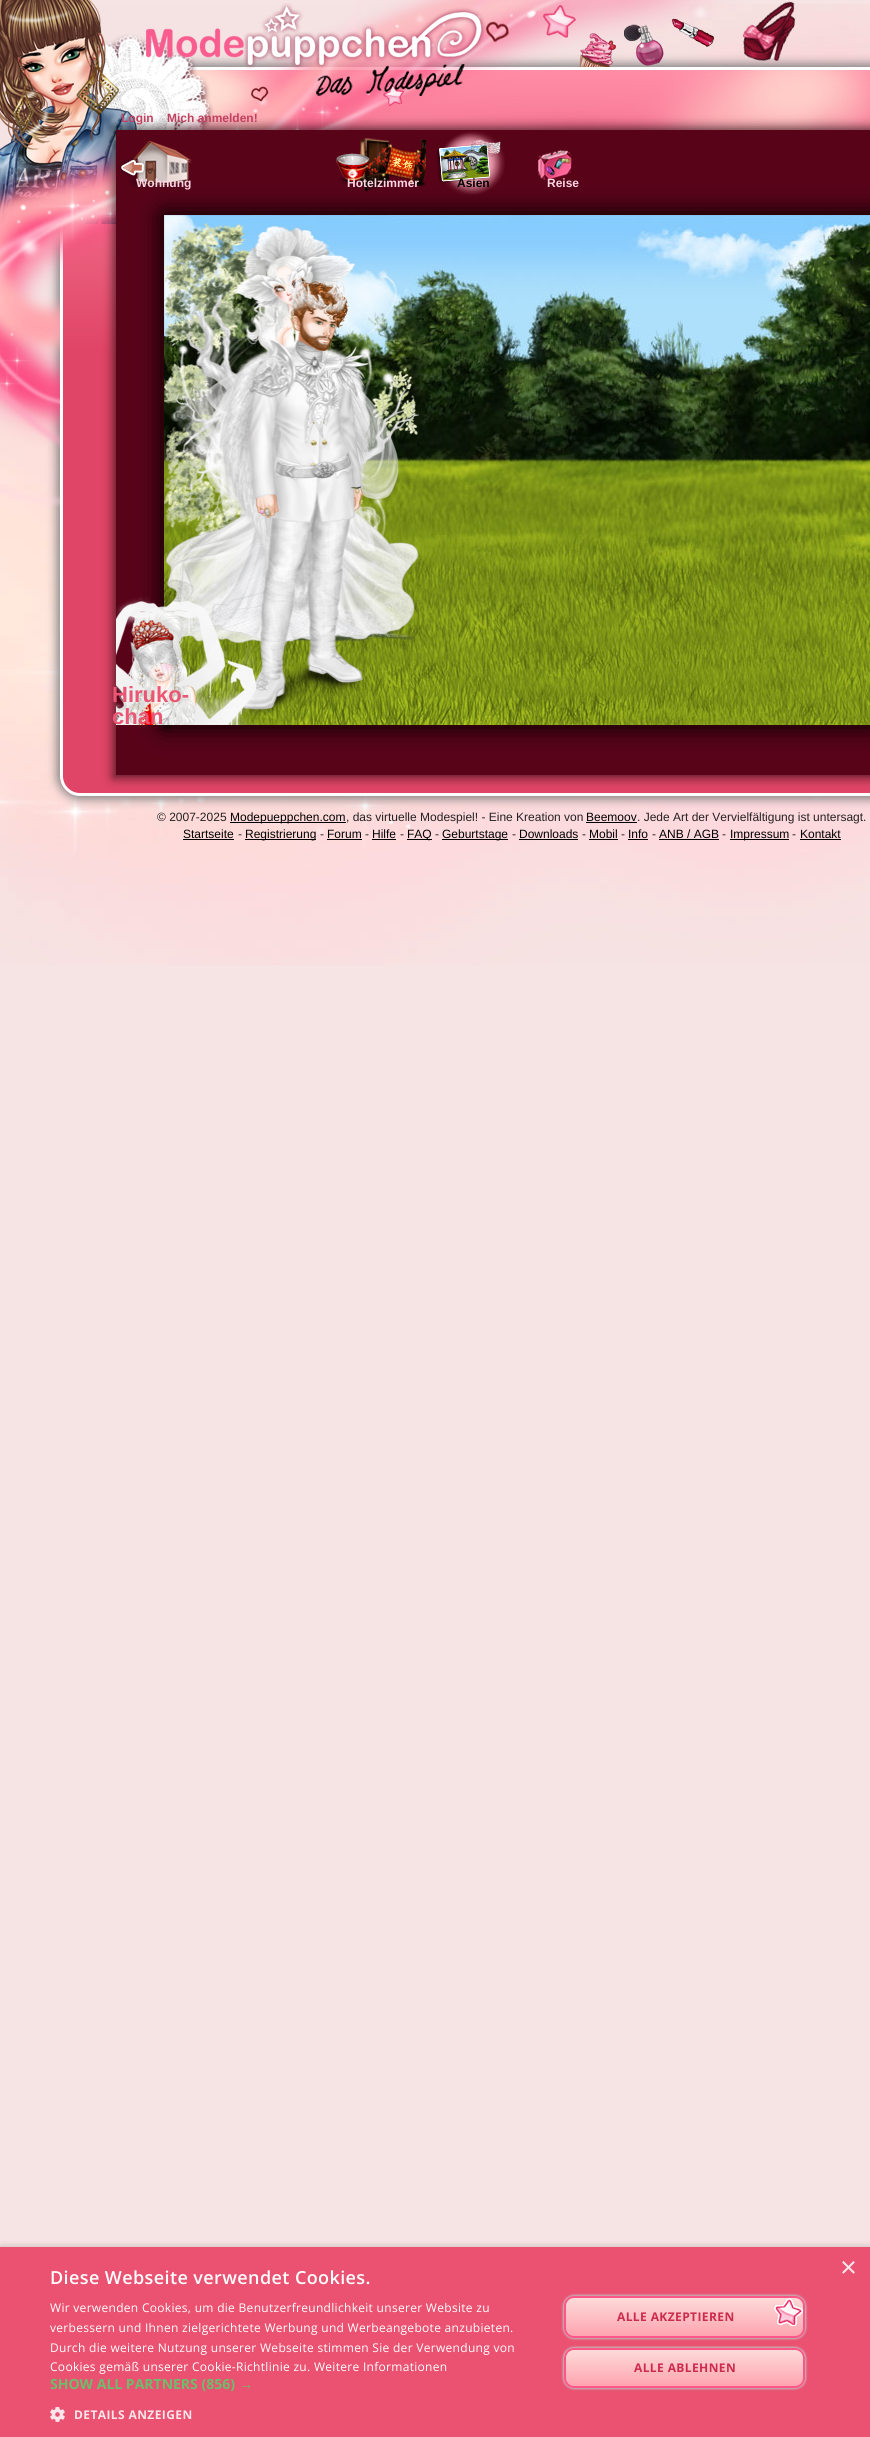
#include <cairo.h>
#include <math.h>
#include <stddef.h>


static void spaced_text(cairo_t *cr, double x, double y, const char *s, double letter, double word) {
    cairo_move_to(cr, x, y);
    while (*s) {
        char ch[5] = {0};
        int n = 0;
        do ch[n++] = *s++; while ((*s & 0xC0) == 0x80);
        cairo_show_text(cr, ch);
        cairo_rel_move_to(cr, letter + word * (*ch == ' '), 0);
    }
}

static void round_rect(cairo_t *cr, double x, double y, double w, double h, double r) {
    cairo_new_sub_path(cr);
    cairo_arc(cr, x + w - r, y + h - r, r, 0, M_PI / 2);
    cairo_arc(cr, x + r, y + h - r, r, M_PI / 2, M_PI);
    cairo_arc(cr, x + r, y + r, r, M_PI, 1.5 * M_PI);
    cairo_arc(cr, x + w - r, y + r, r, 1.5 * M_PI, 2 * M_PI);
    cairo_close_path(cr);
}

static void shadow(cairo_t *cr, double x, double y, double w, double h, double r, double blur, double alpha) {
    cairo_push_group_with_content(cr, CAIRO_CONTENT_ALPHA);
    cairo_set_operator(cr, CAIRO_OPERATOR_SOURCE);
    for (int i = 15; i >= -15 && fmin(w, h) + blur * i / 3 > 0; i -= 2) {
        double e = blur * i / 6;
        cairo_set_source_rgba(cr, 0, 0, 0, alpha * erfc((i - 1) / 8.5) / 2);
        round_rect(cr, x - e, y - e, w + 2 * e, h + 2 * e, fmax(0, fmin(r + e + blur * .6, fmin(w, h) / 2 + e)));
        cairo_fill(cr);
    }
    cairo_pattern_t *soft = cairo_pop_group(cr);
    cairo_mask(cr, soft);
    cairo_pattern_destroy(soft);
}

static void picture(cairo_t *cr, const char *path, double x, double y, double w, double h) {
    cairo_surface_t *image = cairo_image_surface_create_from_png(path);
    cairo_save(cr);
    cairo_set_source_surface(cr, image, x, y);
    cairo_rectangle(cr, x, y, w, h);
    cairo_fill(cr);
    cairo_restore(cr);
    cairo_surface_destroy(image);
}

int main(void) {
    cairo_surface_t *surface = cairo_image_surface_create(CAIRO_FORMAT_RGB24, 870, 2437);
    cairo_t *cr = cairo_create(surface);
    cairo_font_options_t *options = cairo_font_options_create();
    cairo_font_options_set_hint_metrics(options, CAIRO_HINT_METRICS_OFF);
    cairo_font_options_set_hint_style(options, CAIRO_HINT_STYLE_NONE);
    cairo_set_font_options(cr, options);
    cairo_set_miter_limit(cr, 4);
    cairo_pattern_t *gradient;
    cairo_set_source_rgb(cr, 0.961, 0.89, 0.89);
    cairo_paint(cr);
    picture(cr, "img1.png", 0, 4, 870, 961);
    cairo_set_source_rgb(cr, 0.502, 0.502, 0.502);
    shadow(cr, 57, 64, 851, 735, 23, 5, 1);
    cairo_save(cr);
    round_rect(cr, 60, 67, 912, 729, 20);
    cairo_clip(cr);
    gradient = cairo_pattern_create_linear(63, 793, 63, 70);
    cairo_pattern_add_color_stop_rgba(gradient, 0.61, 0.878, 0.267, 0.4, 1);
    cairo_pattern_add_color_stop_rgba(gradient, 1, 1, 0.549, 0.647, 1);
    cairo_set_source(cr, gradient);
    cairo_pattern_destroy(gradient);
    cairo_rectangle(cr, 60, 70, 810, 723);
    cairo_fill(cr);
    cairo_restore(cr);
    round_rect(cr, 61.5, 68.5, 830, 726, 18.5);
    cairo_set_source_rgb(cr, 1, 1, 1);
    cairo_set_line_width(cr, 3);
    cairo_stroke(cr);
    picture(cr, "img5.png", 87, 34, 783, 96);
    picture(cr, "img3.png", 0, 0, 137, 224);
    picture(cr, "img4.png", 0, 0, 796, 507);
    picture(cr, "img2.png", 146, 3, 340, 93);
    cairo_set_source_rgb(cr, 0, 0, 0);
    shadow(cr, 113, 127, 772, 651, 0, 5, 0.6);
    cairo_select_font_face(cr, "Liberation Sans", CAIRO_FONT_SLANT_NORMAL, CAIRO_FONT_WEIGHT_BOLD);
    cairo_set_font_size(cr, 12);
    cairo_set_source_rgb(cr, 0.753, 0.251, 0.376);
    cairo_move_to(cr, 121, 122);
    cairo_show_text(cr, "Login");
    cairo_move_to(cr, 167, 122);
    cairo_show_text(cr, "Mich anmelden!");
    cairo_set_source_rgb(cr, 0.349, 0.012, 0.098);
    cairo_rectangle(cr, 116, 130, 754, 645);
    cairo_fill(cr);
    picture(cr, "img6.png", 119, 141, 73, 47);
    picture(cr, "img7.png", 336, 138, 90, 54);
    picture(cr, "img8.png", 436, 131, 69, 64);
    picture(cr, "img9.png", 538, 149, 34, 32);
    cairo_set_source_rgb(cr, 0, 0, 0);
    shadow(cr, 162, 213, 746, 514, 0, 12.5, 1);
    cairo_set_source_rgb(cr, 1, 0.839, 0.898);
    cairo_move_to(cr, 136, 187);
    cairo_show_text(cr, "Wohnung");
    cairo_move_to(cr, 347, 187);
    cairo_show_text(cr, "Hotelzimmer");
    cairo_set_source_rgb(cr, 0, 0, 0);
    cairo_move_to(cr, 457, 187);
    cairo_show_text(cr, "Asien");
    cairo_set_source_rgb(cr, 1, 0.839, 0.898);
    cairo_move_to(cr, 547, 187);
    cairo_show_text(cr, "Reise");
    picture(cr, "img10.png", 164, 215, 706, 510);
    picture(cr, "img34.png", 334, 634, 18, 10);
    picture(cr, "img11.png", 164, 223, 255, 419);
    picture(cr, "img16.png", 232, 264, 112, 372);
    picture(cr, "img20.png", 273, 278, 30, 14);
    picture(cr, "img23.png", 273, 282, 35, 24);
    picture(cr, "img25.png", 286, 291, 7, 6);
    picture(cr, "img19.png", 273, 277, 36, 24);
    picture(cr, "img17.png", 273, 276, 27, 10);
    picture(cr, "img26.png", 288, 295, 8, 8);
    picture(cr, "img18.png", 273, 276, 36, 25);
    picture(cr, "img22.png", 275, 280, 28, 11);
    picture(cr, "img21.png", 273, 278, 32, 15);
    picture(cr, "img27.png", 282, 314, 14, 7);
    picture(cr, "img29.png", 257, 325, 43, 29);
    picture(cr, "img33.png", 259, 612, 89, 24);
    picture(cr, "img32.png", 165, 375, 254, 269);
    picture(cr, "img30.png", 205, 343, 194, 209);
    picture(cr, "img13.png", 245, 230, 84, 121);
    picture(cr, "img14.png", 256, 236, 55, 103);
    picture(cr, "img24.png", 272, 283, 39, 44);
    picture(cr, "img12.png", 232, 226, 123, 82);
    picture(cr, "img15.png", 260, 260, 53, 29);
    picture(cr, "img28.png", 206, 320, 145, 96);
    picture(cr, "img31.png", 234, 346, 94, 64);
    picture(cr, "img49.png", 240, 661, 129, 55);
    picture(cr, "img50.png", 249, 402, 33, 33);
    picture(cr, "img51.png", 280, 439, 1, 1);
    picture(cr, "img52.png", 236, 480, 15, 10);
    picture(cr, "img38.png", 249, 332, 115, 377);
    picture(cr, "img42.png", 220, 346, 152, 267);
    picture(cr, "img48.png", 255, 648, 103, 61);
    picture(cr, "img47.png", 242, 648, 122, 62);
    picture(cr, "img44.png", 260, 488, 93, 193);
    picture(cr, "img41.png", 249, 342, 114, 181);
    picture(cr, "img40.png", 294, 340, 36, 68);
    picture(cr, "img39.png", 247, 338, 122, 106);
    picture(cr, "img36.png", 290, 280, 59, 72);
    picture(cr, "img37.png", 290, 314, 7, 28);
    picture(cr, "img35.png", 286, 269, 62, 46);
    picture(cr, "img43.png", 275, 453, 76, 26);
    picture(cr, "img45.png", 350, 486, 12, 8);
    picture(cr, "img46.png", 259, 498, 105, 19);
    cairo_set_source_rgb(cr, 0, 0, 0);
    shadow(cr, 165, 664, 2, 62, 0, 4, 1);
    picture(cr, "img53.png", 116, 596, 148, 129);
    cairo_set_font_size(cr, 22);
    cairo_set_source_rgb(cr, 0.914, 0.341, 0.455);
    cairo_move_to(cr, 112, 702);
    cairo_show_text(cr, "Hiruko-");
    cairo_move_to(cr, 112, 724);
    cairo_show_text(cr, "chan");
    cairo_select_font_face(cr, "Liberation Sans", CAIRO_FONT_SLANT_NORMAL, CAIRO_FONT_WEIGHT_NORMAL);
    cairo_set_font_size(cr, 12);
    cairo_set_source_rgb(cr, 0.133, 0.133, 0.133);
    cairo_move_to(cr, 157, 821);
    cairo_show_text(cr, "© 2007-2025");
    cairo_set_source_rgb(cr, 0, 0, 0);
    cairo_rectangle(cr, 230, 822, 116, 1);
    cairo_fill(cr);
    cairo_move_to(cr, 230, 821);
    cairo_show_text(cr, "Modepueppchen.com");
    cairo_set_source_rgb(cr, 0.133, 0.133, 0.133);
    cairo_move_to(cr, 346, 821);
    cairo_show_text(cr, ", das virtuelle Modespiel! - Eine Kreation von");
    cairo_set_source_rgb(cr, 0, 0, 0);
    cairo_move_to(cr, 586, 821);
    cairo_show_text(cr, "Beemoov");
    cairo_rectangle(cr, 586, 822, 51, 1);
    cairo_fill(cr);
    cairo_set_source_rgb(cr, 0.133, 0.133, 0.133);
    cairo_move_to(cr, 637, 821);
    cairo_show_text(cr, ". Jede Art der Vervielfältigung ist untersagt.");
    cairo_set_source_rgb(cr, 0, 0, 0);
    cairo_move_to(cr, 183, 838);
    cairo_show_text(cr, "Startseite");
    cairo_rectangle(cr, 183, 839, 51, 1);
    cairo_fill(cr);
    cairo_set_source_rgb(cr, 0.133, 0.133, 0.133);
    cairo_move_to(cr, 238, 838);
    cairo_show_text(cr, "-");
    cairo_set_source_rgb(cr, 0, 0, 0);
    cairo_rectangle(cr, 245, 839, 71, 1);
    cairo_fill(cr);
    cairo_move_to(cr, 245, 838);
    cairo_show_text(cr, "Registrierung");
    cairo_set_source_rgb(cr, 0.133, 0.133, 0.133);
    cairo_move_to(cr, 320, 838);
    cairo_show_text(cr, "-");
    cairo_set_source_rgb(cr, 0, 0, 0);
    cairo_move_to(cr, 327, 838);
    cairo_show_text(cr, "Forum");
    cairo_rectangle(cr, 327, 839, 35, 1);
    cairo_fill(cr);
    cairo_set_source_rgb(cr, 0.133, 0.133, 0.133);
    cairo_move_to(cr, 365, 838);
    cairo_show_text(cr, "-");
    cairo_set_source_rgb(cr, 0, 0, 0);
    cairo_move_to(cr, 372, 838);
    cairo_show_text(cr, "Hilfe");
    cairo_rectangle(cr, 372, 839, 24, 1);
    cairo_fill(cr);
    cairo_set_source_rgb(cr, 0.133, 0.133, 0.133);
    cairo_move_to(cr, 400, 838);
    cairo_show_text(cr, "-");
    cairo_set_source_rgb(cr, 0, 0, 0);
    cairo_rectangle(cr, 407, 839, 25, 1);
    cairo_fill(cr);
    cairo_move_to(cr, 407, 838);
    cairo_show_text(cr, "FAQ");
    cairo_set_source_rgb(cr, 0.133, 0.133, 0.133);
    cairo_move_to(cr, 435, 838);
    cairo_show_text(cr, "-");
    cairo_set_source_rgb(cr, 0, 0, 0);
    cairo_rectangle(cr, 442, 839, 66, 1);
    cairo_fill(cr);
    cairo_move_to(cr, 442, 838);
    cairo_show_text(cr, "Geburtstage");
    cairo_set_source_rgb(cr, 0.133, 0.133, 0.133);
    cairo_move_to(cr, 512, 838);
    cairo_show_text(cr, "-");
    cairo_set_source_rgb(cr, 0, 0, 0);
    cairo_move_to(cr, 519, 838);
    cairo_show_text(cr, "Downloads");
    cairo_rectangle(cr, 519, 839, 59, 1);
    cairo_fill(cr);
    cairo_set_source_rgb(cr, 0.133, 0.133, 0.133);
    cairo_move_to(cr, 582, 838);
    cairo_show_text(cr, "-");
    cairo_set_source_rgb(cr, 0, 0, 0);
    cairo_move_to(cr, 589, 838);
    cairo_show_text(cr, "Mobil");
    cairo_rectangle(cr, 589, 839, 29, 1);
    cairo_fill(cr);
    cairo_set_source_rgb(cr, 0.133, 0.133, 0.133);
    cairo_move_to(cr, 621, 838);
    cairo_show_text(cr, "-");
    cairo_set_source_rgb(cr, 0, 0, 0);
    cairo_move_to(cr, 628, 838);
    cairo_show_text(cr, "Info");
    cairo_rectangle(cr, 628, 839, 20, 1);
    cairo_fill(cr);
    cairo_set_source_rgb(cr, 0.133, 0.133, 0.133);
    cairo_move_to(cr, 652, 838);
    cairo_show_text(cr, "-");
    cairo_set_source_rgb(cr, 0, 0, 0);
    cairo_move_to(cr, 659, 838);
    cairo_show_text(cr, "ANB / AGB");
    cairo_rectangle(cr, 659, 839, 60, 1);
    cairo_fill(cr);
    cairo_set_source_rgb(cr, 0.133, 0.133, 0.133);
    cairo_move_to(cr, 722, 838);
    cairo_show_text(cr, "-");
    cairo_set_source_rgb(cr, 0, 0, 0);
    cairo_rectangle(cr, 730, 839, 59, 1);
    cairo_fill(cr);
    cairo_move_to(cr, 730, 838);
    cairo_show_text(cr, "Impressum");
    cairo_set_source_rgb(cr, 0.133, 0.133, 0.133);
    cairo_move_to(cr, 792, 838);
    cairo_show_text(cr, "-");
    cairo_set_source_rgb(cr, 0, 0, 0);
    cairo_move_to(cr, 800, 838);
    cairo_show_text(cr, "Kontakt");
    cairo_rectangle(cr, 800, 839, 41, 1);
    cairo_fill(cr);
    cairo_set_source_rgb(cr, 0, 0, 0);
    shadow(cr, 1, 2249, 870, 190, 0, 4, 0.35);
    cairo_set_source_rgb(cr, 0.918, 0.318, 0.439);
    cairo_rectangle(cr, 0, 2247, 870, 190);
    cairo_fill(cr);
    cairo_set_font_size(cr, 29);
    cairo_set_source_rgb(cr, 0.988, 0.898, 0.918);
    cairo_move_to(cr, 840, 2277);
    cairo_show_text(cr, "×");
    cairo_select_font_face(cr, "Open Sans SemiBold", CAIRO_FONT_SLANT_NORMAL, CAIRO_FONT_WEIGHT_NORMAL);
    cairo_set_font_size(cr, 18);
    cairo_set_source_rgb(cr, 1, 1, 1);
    spaced_text(cr, 50, 2284, "Diese Webseite verwendet Cookies.", 0.4, 0);
    cairo_select_font_face(cr, "Open Sans", CAIRO_FONT_SLANT_NORMAL, CAIRO_FONT_WEIGHT_NORMAL);
    cairo_set_font_size(cr, 12);
    spaced_text(cr, 50, 2312, "Wir verwenden Cookies, um die Benutzerfreundlichkeit unserer Website zu", 0.3, 0);
    spaced_text(cr, 50, 2332, "verbessern und Ihnen zielgerichtete Werbung und Werbeangebote anzubieten.", 0.3, 0);
    spaced_text(cr, 50, 2352, "Durch die weitere Nutzung unserer Webseite stimmen Sie der Verwendung von", 0.3, 0);
    spaced_text(cr, 50, 2371, "Cookies gemäß unserer Cookie-Richtlinie zu. Weitere Informationen", 0.3, 0);
    cairo_select_font_face(cr, "Open Sans", CAIRO_FONT_SLANT_NORMAL, CAIRO_FONT_WEIGHT_BOLD);
    cairo_set_font_size(cr, 14);
    cairo_set_source_rgb(cr, 0.42, 0.745, 0.42);
    cairo_move_to(cr, 50, 2389);
    cairo_show_text(cr, "SHOW ALL PARTNERS (856)");
    cairo_select_font_face(cr, "Liberation Sans", CAIRO_FONT_SLANT_NORMAL, CAIRO_FONT_WEIGHT_BOLD);
    cairo_move_to(cr, 239, 2389);
    cairo_show_text(cr, "→");
    picture(cr, "img54.png", 50, 2407, 15, 15);
    cairo_select_font_face(cr, "Open Sans", CAIRO_FONT_SLANT_NORMAL, CAIRO_FONT_WEIGHT_BOLD);
    cairo_set_font_size(cr, 12);
    cairo_set_source_rgb(cr, 0.988, 0.898, 0.918);
    spaced_text(cr, 74, 2419, "DETAILS ANZEIGEN", 0.4, 0);
    cairo_set_source_rgb(cr, 0.749, 0.749, 0.749);
    shadow(cr, 563, 2295, 243, 44, 11, 1, 1);
    picture(cr, "img55.png", 566, 2298, 237, 38);
    round_rect(cr, 565, 2297, 239, 40, 9);
    cairo_set_source_rgb(cr, 0.988, 0.341, 0.533);
    cairo_set_line_width(cr, 2);
    cairo_stroke(cr);
    cairo_set_source_rgb(cr, 0.804, 0.169, 0.306);
    spaced_text(cr, 617, 2321, "ALLE AKZEPTIEREN", 0.4, 0);
    cairo_set_source_rgb(cr, 0.749, 0.749, 0.749);
    shadow(cr, 563, 2347, 243, 42, 11, 1, 1);
    cairo_save(cr);
    round_rect(cr, 564, 2348, 241, 40, 10);
    cairo_clip(cr);
    gradient = cairo_pattern_create_linear(685, 2350, 685, 2386);
    cairo_pattern_add_color_stop_rgba(gradient, 0, 0.992, 0.859, 0.847, 1);
    cairo_pattern_add_color_stop_rgba(gradient, 1, 0.996, 0.643, 0.69, 1);
    cairo_set_source(cr, gradient);
    cairo_pattern_destroy(gradient);
    cairo_rectangle(cr, 564, 2350, 241, 36);
    cairo_fill(cr);
    cairo_restore(cr);
    round_rect(cr, 565, 2349, 239, 38, 9);
    cairo_set_source_rgb(cr, 0.988, 0.341, 0.533);
    cairo_stroke(cr);
    cairo_set_source_rgb(cr, 0.804, 0.169, 0.306);
    spaced_text(cr, 634, 2372, "ALLE ABLEHNEN", 0.4, 0);
    cairo_surface_write_to_png(surface, "page.png");
    cairo_font_options_destroy(options);
    cairo_destroy(cr);
    cairo_surface_destroy(surface);
    return 0;
}
